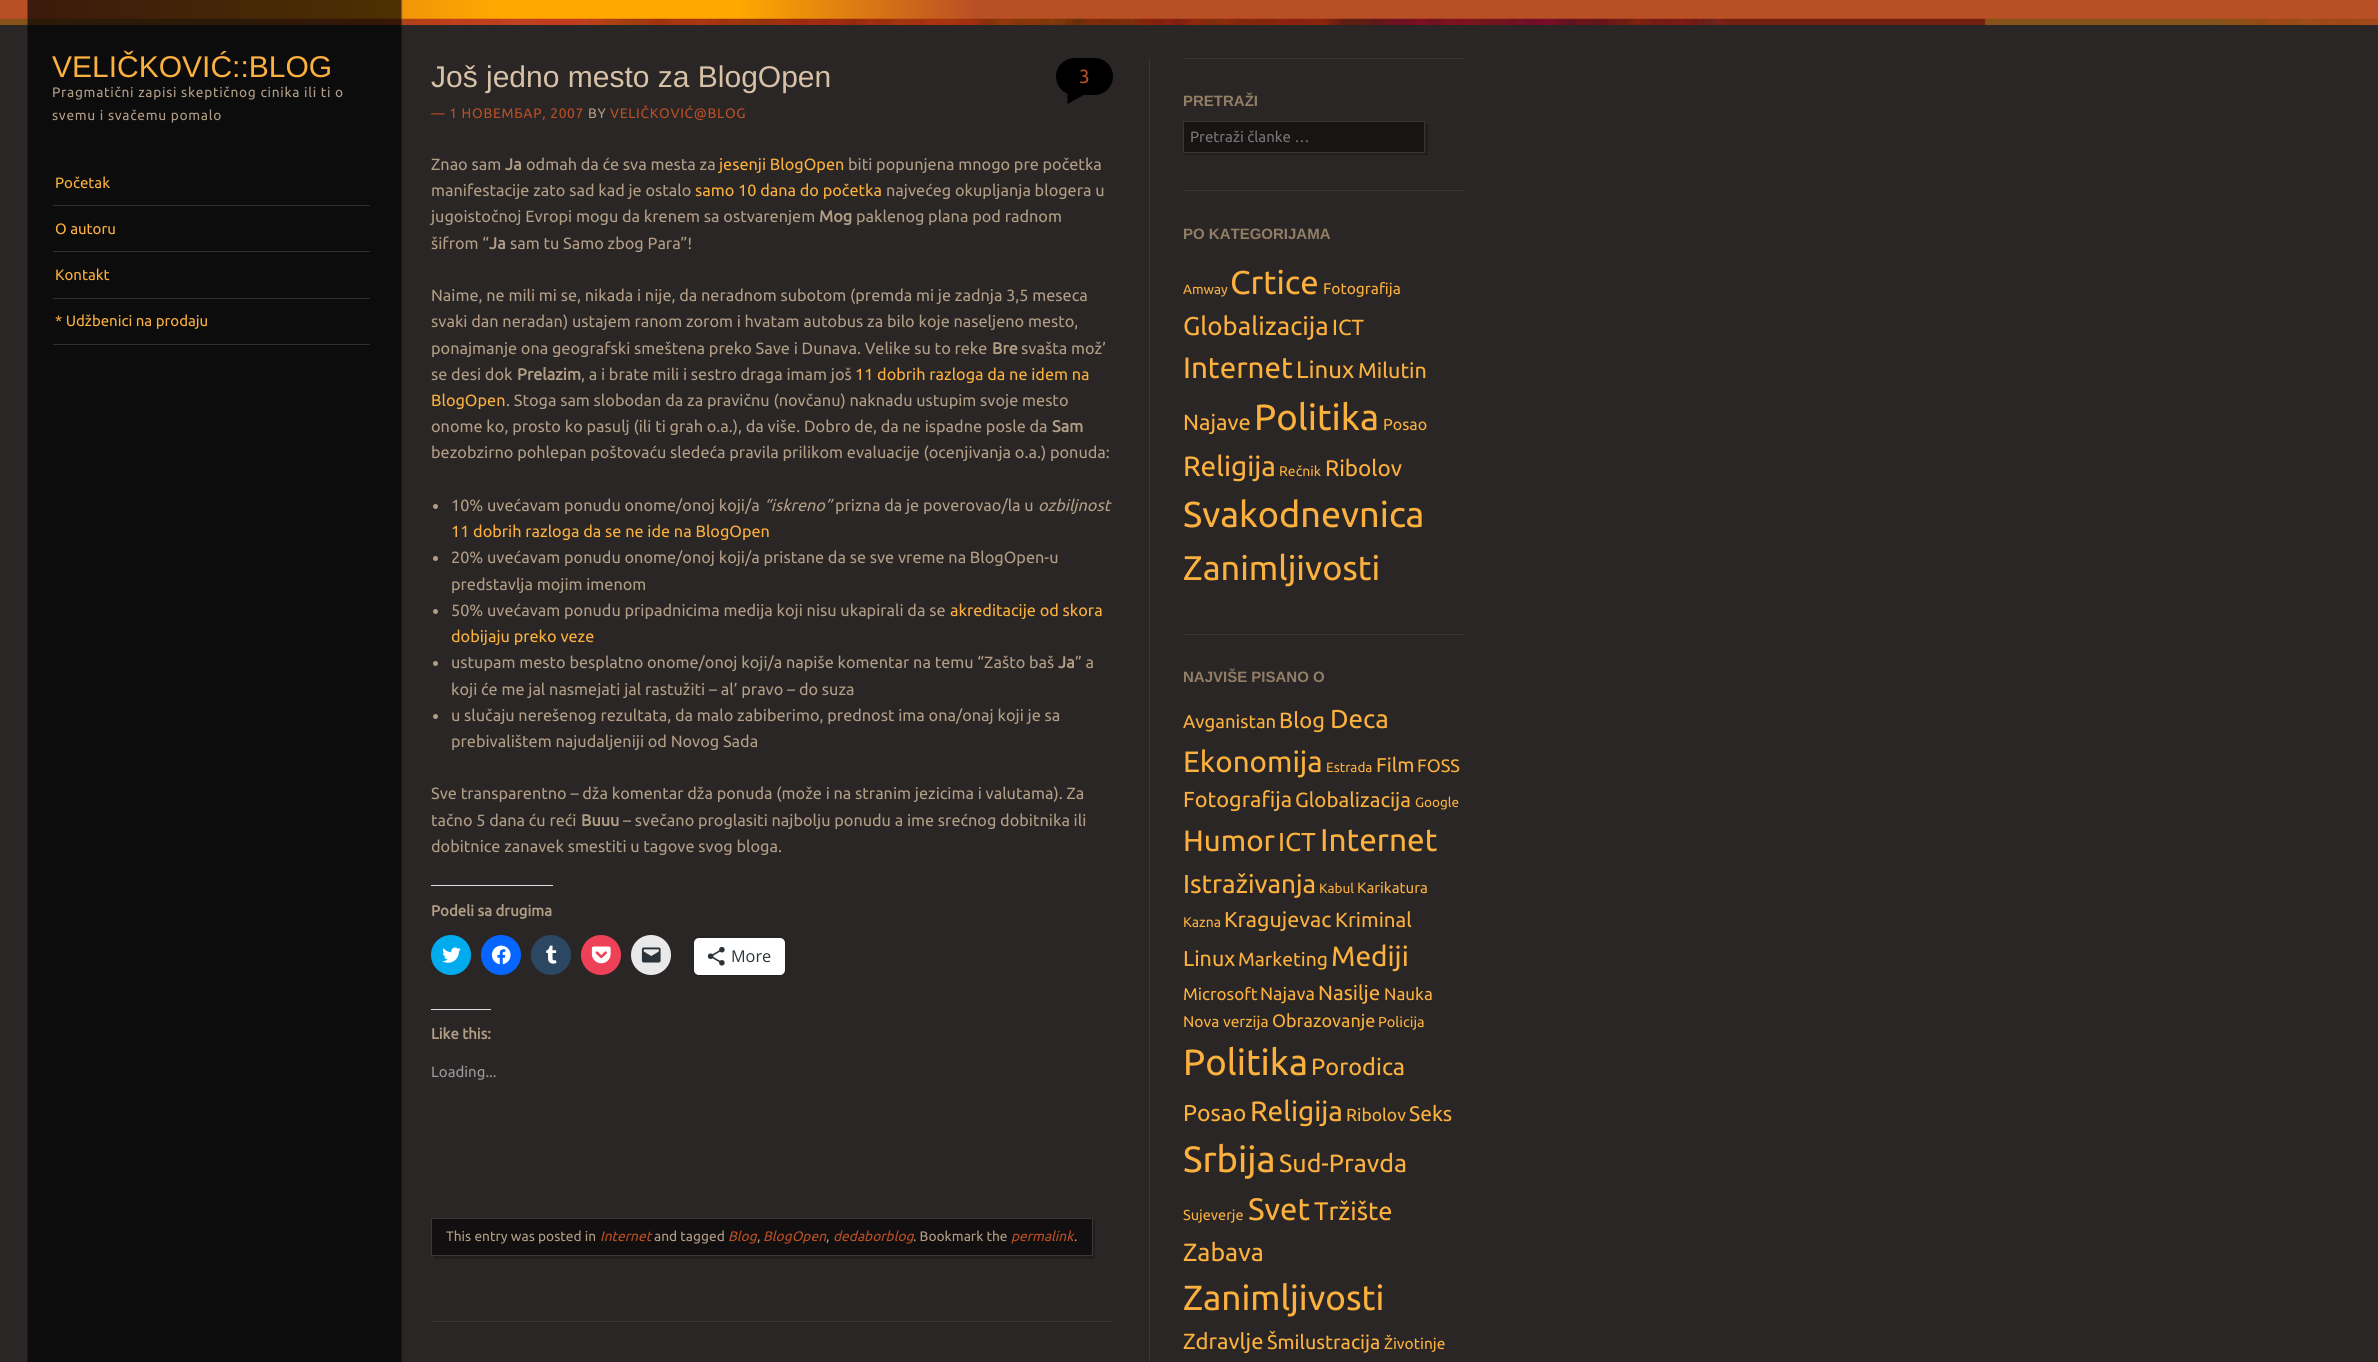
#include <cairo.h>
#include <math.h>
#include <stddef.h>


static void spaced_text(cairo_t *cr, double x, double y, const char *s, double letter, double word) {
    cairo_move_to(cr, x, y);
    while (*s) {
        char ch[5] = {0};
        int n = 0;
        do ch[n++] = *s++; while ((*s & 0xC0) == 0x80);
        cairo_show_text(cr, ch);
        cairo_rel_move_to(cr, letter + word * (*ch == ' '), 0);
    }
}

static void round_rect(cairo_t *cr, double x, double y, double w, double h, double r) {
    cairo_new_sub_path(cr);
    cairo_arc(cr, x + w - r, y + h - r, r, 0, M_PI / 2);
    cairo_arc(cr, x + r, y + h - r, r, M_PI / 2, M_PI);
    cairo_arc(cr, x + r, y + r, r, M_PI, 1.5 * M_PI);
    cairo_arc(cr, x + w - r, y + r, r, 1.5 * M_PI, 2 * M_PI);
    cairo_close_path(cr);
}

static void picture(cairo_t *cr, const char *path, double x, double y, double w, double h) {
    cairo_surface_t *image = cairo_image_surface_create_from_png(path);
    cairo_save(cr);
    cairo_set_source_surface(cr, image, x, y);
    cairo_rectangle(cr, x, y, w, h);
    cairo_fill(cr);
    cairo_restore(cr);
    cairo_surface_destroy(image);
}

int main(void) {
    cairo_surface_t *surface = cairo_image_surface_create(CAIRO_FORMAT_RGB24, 2378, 1362);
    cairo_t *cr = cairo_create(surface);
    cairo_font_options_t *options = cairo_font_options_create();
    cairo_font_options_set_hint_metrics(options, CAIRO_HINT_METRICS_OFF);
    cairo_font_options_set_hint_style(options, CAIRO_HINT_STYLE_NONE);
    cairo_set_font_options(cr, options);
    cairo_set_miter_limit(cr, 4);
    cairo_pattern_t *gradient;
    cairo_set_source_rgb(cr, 0.161, 0.149, 0.145);
    cairo_paint(cr);
    gradient = cairo_pattern_create_linear(0, 13, 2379, 12);
    cairo_pattern_add_color_stop_rgba(gradient, 0.01, 0.725, 0.31, 0.145, 1);
    cairo_pattern_add_color_stop_rgba(gradient, 0.21, 1, 0.659, 0, 1);
    cairo_pattern_add_color_stop_rgba(gradient, 0.31, 1, 0.659, 0, 1);
    cairo_pattern_add_color_stop_rgba(gradient, 0.41, 0.725, 0.31, 0.145, 1);
    cairo_set_source(cr, gradient);
    cairo_pattern_destroy(gradient);
    cairo_rectangle(cr, 0, 0, 2378, 19);
    cairo_fill(cr);
    picture(cr, "img1.png", 0, 18, 2378, 7);
    picture(cr, "img2.png", 27, 0, 376, 1362);
    cairo_select_font_face(cr, "Liberation Sans", CAIRO_FONT_SLANT_NORMAL, CAIRO_FONT_WEIGHT_NORMAL);
    cairo_set_font_size(cr, 30);
    cairo_set_source_rgb(cr, 0.988, 0.69, 0.243);
    cairo_move_to(cr, 52, 77);
    cairo_show_text(cr, "VELIČKOVIĆ::BLOG");
    cairo_select_font_face(cr, "Ubuntu", CAIRO_FONT_SLANT_NORMAL, CAIRO_FONT_WEIGHT_NORMAL);
    cairo_set_font_size(cr, 13.75);
    cairo_set_source_rgb(cr, 0.698, 0.616, 0.522);
    spaced_text(cr, 52, 97, "Pragmatični zapisi skeptičnog cinika ili ti o", 0.7, 0);
    spaced_text(cr, 52, 120, "svemu i svačemu pomalo", 0.7, 0);
    cairo_set_source_rgb(cr, 0.188, 0.184, 0.176);
    cairo_rectangle(cr, 53, 205, 317, 1);
    cairo_fill(cr);
    cairo_set_font_size(cr, 15);
    cairo_set_source_rgb(cr, 0.988, 0.69, 0.243);
    cairo_move_to(cr, 55, 188);
    cairo_show_text(cr, "Početak");
    cairo_set_source_rgb(cr, 0.188, 0.184, 0.176);
    cairo_rectangle(cr, 53, 251, 317, 1);
    cairo_fill(cr);
    cairo_set_source_rgb(cr, 0.988, 0.69, 0.243);
    cairo_move_to(cr, 55, 234);
    cairo_show_text(cr, "O autoru");
    cairo_set_source_rgb(cr, 0.188, 0.184, 0.176);
    cairo_rectangle(cr, 53, 298, 317, 1);
    cairo_fill(cr);
    cairo_set_source_rgb(cr, 0.988, 0.69, 0.243);
    cairo_move_to(cr, 55, 280);
    cairo_show_text(cr, "Kontakt");
    cairo_set_source_rgb(cr, 0.188, 0.184, 0.176);
    cairo_rectangle(cr, 53, 344, 317, 1);
    cairo_fill(cr);
    cairo_set_source_rgb(cr, 0.988, 0.69, 0.243);
    cairo_move_to(cr, 55, 326);
    cairo_show_text(cr, "* Udžbenici na prodaju");
    cairo_set_source_rgb(cr, 0.224, 0.212, 0.212);
    cairo_rectangle(cr, 431, 1321, 682, 1);
    cairo_fill(cr);
    cairo_select_font_face(cr, "Liberation Sans", CAIRO_FONT_SLANT_NORMAL, CAIRO_FONT_WEIGHT_NORMAL);
    cairo_set_font_size(cr, 30);
    cairo_set_source_rgb(cr, 0.843, 0.761, 0.659);
    cairo_move_to(cr, 431, 87);
    cairo_show_text(cr, "Još jedno mesto za BlogOpen");
    cairo_set_source_rgb(cr, 0, 0, 0);
    round_rect(cr, 1056, 58, 57, 37, 18.5);
    cairo_fill(cr);
    cairo_select_font_face(cr, "Ubuntu", CAIRO_FONT_SLANT_NORMAL, CAIRO_FONT_WEIGHT_NORMAL);
    cairo_set_font_size(cr, 19);
    cairo_set_source_rgb(cr, 0.725, 0.31, 0.145);
    cairo_move_to(cr, 1079, 83);
    cairo_show_text(cr, "3");
    cairo_set_source_rgb(cr, 0, 0, 0);
    cairo_new_path(cr);
    cairo_move_to(cr, 1067.5, 104);
    cairo_line_to(cr, 1067.5, 91);
    cairo_line_to(cr, 1091, 91);
    cairo_close_path(cr);
    cairo_fill(cr);
    cairo_set_font_size(cr, 13.75);
    cairo_set_source_rgb(cr, 0.725, 0.31, 0.145);
    spaced_text(cr, 431, 118, "— 1 НОВЕМБАР, 2007", 0.7, 0);
    cairo_set_source_rgb(cr, 0.698, 0.616, 0.522);
    spaced_text(cr, 588, 118, "BY", 0.7, 0);
    cairo_set_source_rgb(cr, 0.725, 0.31, 0.145);
    spaced_text(cr, 610, 118, "VELIČKOVIĆ@BLOG", 0.7, 0);
    cairo_set_font_size(cr, 16.25);
    cairo_set_source_rgb(cr, 0.698, 0.616, 0.522);
    cairo_move_to(cr, 431, 170);
    cairo_show_text(cr, "Znao sam");
    cairo_select_font_face(cr, "Ubuntu", CAIRO_FONT_SLANT_NORMAL, CAIRO_FONT_WEIGHT_BOLD);
    cairo_move_to(cr, 505, 170);
    cairo_show_text(cr, "Ja");
    cairo_select_font_face(cr, "Ubuntu", CAIRO_FONT_SLANT_NORMAL, CAIRO_FONT_WEIGHT_NORMAL);
    cairo_move_to(cr, 526, 170);
    cairo_show_text(cr, "odmah da će sva mesta za");
    cairo_set_source_rgb(cr, 0.988, 0.69, 0.243);
    cairo_move_to(cr, 719, 170);
    cairo_show_text(cr, "jesenji BlogOpen");
    cairo_set_source_rgb(cr, 0.698, 0.616, 0.522);
    cairo_move_to(cr, 848, 170);
    cairo_show_text(cr, "biti popunjena mnogo pre početka");
    cairo_move_to(cr, 431, 196);
    cairo_show_text(cr, "manifestacije zato sad kad je ostalo");
    cairo_set_source_rgb(cr, 0.988, 0.69, 0.243);
    cairo_move_to(cr, 695, 196);
    cairo_show_text(cr, "samo 10 dana do početka");
    cairo_set_source_rgb(cr, 0.698, 0.616, 0.522);
    cairo_move_to(cr, 886, 196);
    cairo_show_text(cr, "najvećeg okupljanja blogera u");
    cairo_move_to(cr, 431, 222);
    cairo_show_text(cr, "jugoistočnoj Evropi mogu da krenem sa ostvarenjem");
    cairo_select_font_face(cr, "Ubuntu", CAIRO_FONT_SLANT_NORMAL, CAIRO_FONT_WEIGHT_BOLD);
    cairo_move_to(cr, 819, 222);
    cairo_show_text(cr, "Mog");
    cairo_select_font_face(cr, "Ubuntu", CAIRO_FONT_SLANT_NORMAL, CAIRO_FONT_WEIGHT_NORMAL);
    cairo_move_to(cr, 856, 222);
    cairo_show_text(cr, "paklenog plana pod radnom");
    cairo_move_to(cr, 431, 249);
    cairo_show_text(cr, "šifrom “");
    cairo_select_font_face(cr, "Ubuntu", CAIRO_FONT_SLANT_NORMAL, CAIRO_FONT_WEIGHT_BOLD);
    cairo_move_to(cr, 489, 249);
    cairo_show_text(cr, "Ja");
    cairo_select_font_face(cr, "Ubuntu", CAIRO_FONT_SLANT_NORMAL, CAIRO_FONT_WEIGHT_NORMAL);
    cairo_move_to(cr, 510, 249);
    cairo_show_text(cr, "sam tu Samo zbog Para”!");
    cairo_move_to(cr, 431, 301);
    cairo_show_text(cr, "Naime, ne mili mi se, nikada i nije, da neradnom subotom (premda mi je zadnja 3,5 meseca");
    cairo_move_to(cr, 431, 327);
    cairo_show_text(cr, "svaki dan neradan) ustajem ranom zorom i hvatam autobus za bilo koje naseljeno mesto,");
    cairo_move_to(cr, 431, 354);
    cairo_show_text(cr, "ponajmanje ona geografski smeštena preko Save i Dunava. Velike su to reke");
    cairo_select_font_face(cr, "Ubuntu", CAIRO_FONT_SLANT_NORMAL, CAIRO_FONT_WEIGHT_BOLD);
    cairo_move_to(cr, 992, 354);
    cairo_show_text(cr, "Bre");
    cairo_select_font_face(cr, "Ubuntu", CAIRO_FONT_SLANT_NORMAL, CAIRO_FONT_WEIGHT_NORMAL);
    cairo_move_to(cr, 1021, 354);
    cairo_show_text(cr, "svašta mož’");
    cairo_move_to(cr, 431, 380);
    cairo_show_text(cr, "se desi dok");
    cairo_select_font_face(cr, "Ubuntu", CAIRO_FONT_SLANT_NORMAL, CAIRO_FONT_WEIGHT_BOLD);
    cairo_move_to(cr, 517, 380);
    cairo_show_text(cr, "Prelazim");
    cairo_select_font_face(cr, "Ubuntu", CAIRO_FONT_SLANT_NORMAL, CAIRO_FONT_WEIGHT_NORMAL);
    cairo_move_to(cr, 581, 380);
    cairo_show_text(cr, ", a i brate mili i sestro draga imam još");
    cairo_set_source_rgb(cr, 0.988, 0.69, 0.243);
    cairo_move_to(cr, 855, 380);
    cairo_show_text(cr, "11 dobrih razloga da ne idem na");
    cairo_move_to(cr, 431, 406);
    cairo_show_text(cr, "BlogOpen");
    cairo_set_source_rgb(cr, 0.698, 0.616, 0.522);
    cairo_move_to(cr, 506, 406);
    cairo_show_text(cr, ". Stoga sam slobodan da za pravičnu (novčanu) naknadu ustupim svoje mesto");
    cairo_move_to(cr, 431, 432);
    cairo_show_text(cr, "onome ko, prosto ko pasulj (ili ti grah o.a.), da više. Dobro de, da ne ispadne posle da");
    cairo_select_font_face(cr, "Ubuntu", CAIRO_FONT_SLANT_NORMAL, CAIRO_FONT_WEIGHT_BOLD);
    cairo_move_to(cr, 1052, 432);
    cairo_show_text(cr, "Sam");
    cairo_select_font_face(cr, "Ubuntu", CAIRO_FONT_SLANT_NORMAL, CAIRO_FONT_WEIGHT_NORMAL);
    cairo_move_to(cr, 431, 458);
    cairo_show_text(cr, "bezobzirno pohlepan poštovaću sledeća pravila prilikom evaluacije (ocenjivanja o.a.) ponuda:");
    cairo_new_path(cr);
    cairo_arc(cr, 435.5, 506.5, 2.5, 0, 2 * M_PI);
    cairo_fill(cr);
    cairo_move_to(cr, 451, 511);
    cairo_show_text(cr, "10% uvećavam ponudu onome/onoj koji/a");
    cairo_select_font_face(cr, "Ubuntu", CAIRO_FONT_SLANT_ITALIC, CAIRO_FONT_WEIGHT_NORMAL);
    cairo_move_to(cr, 764, 511);
    cairo_show_text(cr, "“iskreno”");
    cairo_select_font_face(cr, "Ubuntu", CAIRO_FONT_SLANT_NORMAL, CAIRO_FONT_WEIGHT_NORMAL);
    cairo_move_to(cr, 835, 511);
    cairo_show_text(cr, "prizna da je poverovao/la u");
    cairo_select_font_face(cr, "Ubuntu", CAIRO_FONT_SLANT_ITALIC, CAIRO_FONT_WEIGHT_NORMAL);
    cairo_move_to(cr, 1038, 511);
    cairo_show_text(cr, "ozbiljnost");
    cairo_select_font_face(cr, "Ubuntu", CAIRO_FONT_SLANT_NORMAL, CAIRO_FONT_WEIGHT_NORMAL);
    cairo_set_source_rgb(cr, 0.988, 0.69, 0.243);
    cairo_move_to(cr, 451, 537);
    cairo_show_text(cr, "11 dobrih razloga da se ne ide na BlogOpen");
    cairo_set_source_rgb(cr, 0.698, 0.616, 0.522);
    cairo_new_path(cr);
    cairo_arc(cr, 435.5, 558.5, 2.5, 0, 2 * M_PI);
    cairo_fill(cr);
    cairo_move_to(cr, 451, 563);
    cairo_show_text(cr, "20% uvećavam ponudu onome/onoj koji/a pristane da se sve vreme na BlogOpen-u");
    cairo_move_to(cr, 451, 590);
    cairo_show_text(cr, "predstavlja mojim imenom");
    cairo_new_path(cr);
    cairo_arc(cr, 435.5, 611.5, 2.5, 0, 2 * M_PI);
    cairo_fill(cr);
    cairo_move_to(cr, 451, 616);
    cairo_show_text(cr, "50% uvećavam ponudu pripadnicima medija koji nisu ukapirali da se");
    cairo_set_source_rgb(cr, 0.988, 0.69, 0.243);
    cairo_move_to(cr, 950, 616);
    cairo_show_text(cr, "akreditacije od skora");
    cairo_move_to(cr, 451, 642);
    cairo_show_text(cr, "dobijaju preko veze");
    cairo_set_source_rgb(cr, 0.698, 0.616, 0.522);
    cairo_new_path(cr);
    cairo_arc(cr, 435.5, 663.5, 2.5, 0, 2 * M_PI);
    cairo_fill(cr);
    cairo_move_to(cr, 451, 668);
    cairo_show_text(cr, "ustupam mesto besplatno onome/onoj koji/a napiše komentar na temu “Zašto baš");
    cairo_select_font_face(cr, "Ubuntu", CAIRO_FONT_SLANT_NORMAL, CAIRO_FONT_WEIGHT_BOLD);
    cairo_move_to(cr, 1058, 668);
    cairo_show_text(cr, "Ja");
    cairo_select_font_face(cr, "Ubuntu", CAIRO_FONT_SLANT_NORMAL, CAIRO_FONT_WEIGHT_NORMAL);
    cairo_move_to(cr, 1075, 668);
    cairo_show_text(cr, "” a");
    cairo_move_to(cr, 451, 695);
    cairo_show_text(cr, "koji će me jal nasmejati jal rastužiti – al’ pravo – do suza");
    cairo_new_path(cr);
    cairo_arc(cr, 435.5, 716.5, 2.5, 0, 2 * M_PI);
    cairo_fill(cr);
    cairo_move_to(cr, 451, 721);
    cairo_show_text(cr, "u slučaju nerešenog rezultata, da malo zabiberimo, prednost ima ona/onaj koji je sa");
    cairo_move_to(cr, 451, 747);
    cairo_show_text(cr, "prebivalištem najudaljeniji od Novog Sada");
    cairo_move_to(cr, 431, 799);
    cairo_show_text(cr, "Sve transparentno – dža komentar dža ponuda (može i na stranim jezicima i valutama). Za");
    cairo_move_to(cr, 431, 826);
    cairo_show_text(cr, "tačno 5 dana ću reći");
    cairo_select_font_face(cr, "Ubuntu", CAIRO_FONT_SLANT_NORMAL, CAIRO_FONT_WEIGHT_BOLD);
    cairo_move_to(cr, 581, 826);
    cairo_show_text(cr, "Buuu");
    cairo_select_font_face(cr, "Ubuntu", CAIRO_FONT_SLANT_NORMAL, CAIRO_FONT_WEIGHT_NORMAL);
    cairo_move_to(cr, 623, 826);
    cairo_show_text(cr, "– svečano proglasiti najbolju ponudu a ime srećnog dobitnika ili");
    cairo_move_to(cr, 431, 852);
    cairo_show_text(cr, "dobitnice zanavek smestiti u tagove svog bloga.");
    cairo_set_source_rgb(cr, 0.863, 0.863, 0.871);
    cairo_rectangle(cr, 431, 885, 122, 1);
    cairo_fill(cr);
    cairo_select_font_face(cr, "Ubuntu", CAIRO_FONT_SLANT_NORMAL, CAIRO_FONT_WEIGHT_BOLD);
    cairo_set_font_size(cr, 15);
    cairo_set_source_rgb(cr, 0.698, 0.616, 0.522);
    cairo_move_to(cr, 431, 916);
    cairo_show_text(cr, "Podeli sa drugima");
    cairo_set_source_rgb(cr, 0, 0.675, 0.933);
    cairo_new_path(cr);
    cairo_arc(cr, 451, 955, 20, 0, 2 * M_PI);
    cairo_fill(cr);
    picture(cr, "img3.png", 442, 947, 19, 16);
    cairo_set_source_rgb(cr, 0.031, 0.4, 1);
    cairo_arc(cr, 501, 955, 20, 0, 2 * M_PI);
    cairo_fill(cr);
    picture(cr, "img4.png", 491, 945, 20, 20);
    cairo_set_source_rgb(cr, 0.173, 0.278, 0.384);
    cairo_arc(cr, 551, 955, 20, 0, 2 * M_PI);
    cairo_fill(cr);
    picture(cr, "img5.png", 546, 945, 11, 19);
    cairo_set_source_rgb(cr, 0.933, 0.251, 0.337);
    cairo_arc(cr, 601, 955, 20, 0, 2 * M_PI);
    cairo_fill(cr);
    picture(cr, "img6.png", 591, 946, 20, 18);
    cairo_set_source_rgb(cr, 0.914, 0.914, 0.914);
    cairo_arc(cr, 651, 955, 20, 0, 2 * M_PI);
    cairo_fill(cr);
    picture(cr, "img7.png", 641, 947, 20, 16);
    round_rect(cr, 693.5, 936.5, 92, 39, 5.5);
    cairo_set_source_rgb(cr, 0.141, 0.129, 0.129);
    cairo_set_line_width(cr, 1);
    cairo_stroke(cr);
    cairo_set_source_rgb(cr, 1, 1, 1);
    round_rect(cr, 694, 938, 91, 37, 5);
    cairo_fill(cr);
    picture(cr, "img8.png", 707, 946, 18, 20);
    cairo_select_font_face(cr, "Open Sans", CAIRO_FONT_SLANT_NORMAL, CAIRO_FONT_WEIGHT_NORMAL);
    cairo_set_font_size(cr, 16.25);
    cairo_set_source_rgb(cr, 0.173, 0.2, 0.22);
    cairo_move_to(cr, 731, 962);
    cairo_show_text(cr, "More");
    cairo_set_source_rgb(cr, 0.863, 0.863, 0.871);
    cairo_rectangle(cr, 431, 1009, 60, 1);
    cairo_fill(cr);
    cairo_select_font_face(cr, "Ubuntu", CAIRO_FONT_SLANT_NORMAL, CAIRO_FONT_WEIGHT_BOLD);
    cairo_set_font_size(cr, 15);
    cairo_set_source_rgb(cr, 0.698, 0.616, 0.522);
    cairo_move_to(cr, 431, 1039);
    cairo_show_text(cr, "Like this:");
    cairo_select_font_face(cr, "Ubuntu", CAIRO_FONT_SLANT_NORMAL, CAIRO_FONT_WEIGHT_NORMAL);
    cairo_set_source_rgb(cr, 0.6, 0.6, 0.6);
    cairo_move_to(cr, 431, 1077);
    cairo_show_text(cr, "Loading...");
    cairo_set_source_rgb(cr, 0.129, 0.118, 0.118);
    cairo_new_path(cr);
    cairo_move_to(cr, 434, 1256);
    cairo_line_to(cr, 434, 1259);
    cairo_line_to(cr, 1095, 1259);
    cairo_line_to(cr, 1095, 1220);
    cairo_line_to(cr, 1092, 1220);
    cairo_line_to(cr, 1092, 1256);
    cairo_close_path(cr);
    cairo_fill(cr);
    cairo_set_source_rgb(cr, 0.071, 0.059, 0.063);
    cairo_rectangle(cr, 431.5, 1218.5, 661, 37);
    cairo_fill_preserve(cr);
    cairo_set_source_rgb(cr, 0.224, 0.212, 0.212);
    cairo_stroke(cr);
    cairo_set_font_size(cr, 13.75);
    cairo_set_source_rgb(cr, 0.698, 0.616, 0.522);
    cairo_move_to(cr, 446, 1241);
    cairo_show_text(cr, "This entry was posted in");
    cairo_select_font_face(cr, "Ubuntu", CAIRO_FONT_SLANT_ITALIC, CAIRO_FONT_WEIGHT_NORMAL);
    cairo_set_source_rgb(cr, 0.725, 0.31, 0.145);
    cairo_move_to(cr, 600, 1241);
    cairo_show_text(cr, "Internet");
    cairo_select_font_face(cr, "Ubuntu", CAIRO_FONT_SLANT_NORMAL, CAIRO_FONT_WEIGHT_NORMAL);
    cairo_set_source_rgb(cr, 0.698, 0.616, 0.522);
    cairo_move_to(cr, 654, 1241);
    cairo_show_text(cr, "and tagged");
    cairo_select_font_face(cr, "Ubuntu", CAIRO_FONT_SLANT_ITALIC, CAIRO_FONT_WEIGHT_NORMAL);
    cairo_set_source_rgb(cr, 0.725, 0.31, 0.145);
    cairo_move_to(cr, 728, 1241);
    cairo_show_text(cr, "Blog");
    cairo_select_font_face(cr, "Ubuntu", CAIRO_FONT_SLANT_NORMAL, CAIRO_FONT_WEIGHT_NORMAL);
    cairo_set_source_rgb(cr, 0.698, 0.616, 0.522);
    cairo_move_to(cr, 757, 1241);
    cairo_show_text(cr, ",");
    cairo_select_font_face(cr, "Ubuntu", CAIRO_FONT_SLANT_ITALIC, CAIRO_FONT_WEIGHT_NORMAL);
    cairo_set_source_rgb(cr, 0.725, 0.31, 0.145);
    cairo_move_to(cr, 763, 1241);
    cairo_show_text(cr, "BlogOpen");
    cairo_select_font_face(cr, "Ubuntu", CAIRO_FONT_SLANT_NORMAL, CAIRO_FONT_WEIGHT_NORMAL);
    cairo_set_source_rgb(cr, 0.698, 0.616, 0.522);
    cairo_move_to(cr, 826, 1241);
    cairo_show_text(cr, ",");
    cairo_select_font_face(cr, "Ubuntu", CAIRO_FONT_SLANT_ITALIC, CAIRO_FONT_WEIGHT_NORMAL);
    cairo_set_source_rgb(cr, 0.725, 0.31, 0.145);
    cairo_move_to(cr, 833, 1241);
    cairo_show_text(cr, "dedaborblog");
    cairo_select_font_face(cr, "Ubuntu", CAIRO_FONT_SLANT_NORMAL, CAIRO_FONT_WEIGHT_NORMAL);
    cairo_set_source_rgb(cr, 0.698, 0.616, 0.522);
    cairo_move_to(cr, 913, 1241);
    cairo_show_text(cr, ". Bookmark the");
    cairo_select_font_face(cr, "Ubuntu", CAIRO_FONT_SLANT_ITALIC, CAIRO_FONT_WEIGHT_NORMAL);
    cairo_set_source_rgb(cr, 0.725, 0.31, 0.145);
    cairo_move_to(cr, 1011, 1241);
    cairo_show_text(cr, "permalink");
    cairo_select_font_face(cr, "Ubuntu", CAIRO_FONT_SLANT_NORMAL, CAIRO_FONT_WEIGHT_NORMAL);
    cairo_set_source_rgb(cr, 0.698, 0.616, 0.522);
    cairo_move_to(cr, 1074, 1241);
    cairo_show_text(cr, ".");
    cairo_set_source_rgb(cr, 0.224, 0.212, 0.212);
    cairo_rectangle(cr, 1149, 58, 1, 1304);
    cairo_fill(cr);
    cairo_rectangle(cr, 1183, 58, 281, 1);
    cairo_fill(cr);
    cairo_select_font_face(cr, "Liberation Sans", CAIRO_FONT_SLANT_NORMAL, CAIRO_FONT_WEIGHT_BOLD);
    cairo_set_font_size(cr, 15);
    cairo_set_source_rgb(cr, 0.573, 0.494, 0.4);
    cairo_move_to(cr, 1183, 106);
    cairo_show_text(cr, "PRETRAŽI");
    cairo_set_source_rgb(cr, 0.129, 0.118, 0.118);
    cairo_new_path(cr);
    cairo_move_to(cr, 1185, 152);
    cairo_line_to(cr, 1185, 155);
    cairo_line_to(cr, 1428, 155);
    cairo_line_to(cr, 1428, 124);
    cairo_line_to(cr, 1425, 124);
    cairo_line_to(cr, 1425, 152);
    cairo_close_path(cr);
    cairo_fill(cr);
    cairo_set_source_rgb(cr, 0.094, 0.082, 0.078);
    cairo_rectangle(cr, 1183.5, 121.5, 241, 31);
    cairo_fill_preserve(cr);
    cairo_set_source_rgb(cr, 0.224, 0.216, 0.212);
    cairo_stroke(cr);
    cairo_select_font_face(cr, "Ubuntu", CAIRO_FONT_SLANT_NORMAL, CAIRO_FONT_WEIGHT_NORMAL);
    cairo_set_source_rgb(cr, 0.459, 0.459, 0.459);
    cairo_move_to(cr, 1190, 142);
    cairo_show_text(cr, "Pretraži članke …");
    cairo_set_source_rgb(cr, 0.224, 0.212, 0.212);
    cairo_rectangle(cr, 1183, 190, 281, 1);
    cairo_fill(cr);
    cairo_select_font_face(cr, "Liberation Sans", CAIRO_FONT_SLANT_NORMAL, CAIRO_FONT_WEIGHT_BOLD);
    cairo_set_source_rgb(cr, 0.573, 0.494, 0.4);
    cairo_move_to(cr, 1183, 239);
    cairo_show_text(cr, "PO KATEGORIJAMA");
    cairo_select_font_face(cr, "Ubuntu", CAIRO_FONT_SLANT_NORMAL, CAIRO_FONT_WEIGHT_NORMAL);
    cairo_set_font_size(cr, 13.5);
    cairo_set_source_rgb(cr, 0.988, 0.69, 0.243);
    cairo_move_to(cr, 1183, 294);
    cairo_show_text(cr, "Amway");
    cairo_set_font_size(cr, 33);
    cairo_move_to(cr, 1230, 294);
    cairo_show_text(cr, "Crtice");
    cairo_set_font_size(cr, 15.5);
    cairo_move_to(cr, 1323, 294);
    cairo_show_text(cr, "Fotografija");
    cairo_set_font_size(cr, 25.75);
    cairo_move_to(cr, 1183, 335);
    cairo_show_text(cr, "Globalizacija");
    cairo_set_font_size(cr, 22);
    cairo_move_to(cr, 1332, 335);
    cairo_show_text(cr, "ICT");
    cairo_set_font_size(cr, 29.5);
    cairo_move_to(cr, 1183, 378);
    cairo_show_text(cr, "Internet");
    cairo_set_font_size(cr, 24);
    cairo_move_to(cr, 1296, 378);
    cairo_show_text(cr, "Linux");
    cairo_set_font_size(cr, 21.5);
    cairo_move_to(cr, 1358, 378);
    cairo_show_text(cr, "Milutin");
    cairo_set_font_size(cr, 22);
    cairo_move_to(cr, 1183, 430);
    cairo_show_text(cr, "Najave");
    cairo_set_font_size(cr, 36.5);
    cairo_move_to(cr, 1254, 430);
    cairo_show_text(cr, "Politika");
    cairo_set_font_size(cr, 16);
    cairo_move_to(cr, 1383, 430);
    cairo_show_text(cr, "Posao");
    cairo_set_font_size(cr, 28);
    cairo_move_to(cr, 1183, 476);
    cairo_show_text(cr, "Religija");
    cairo_set_font_size(cr, 14);
    cairo_move_to(cr, 1279, 476);
    cairo_show_text(cr, "Rečnik");
    cairo_set_font_size(cr, 22.5);
    cairo_move_to(cr, 1325, 476);
    cairo_show_text(cr, "Ribolov");
    cairo_set_font_size(cr, 36);
    cairo_move_to(cr, 1183, 527);
    cairo_show_text(cr, "Svakodnevnica");
    cairo_set_font_size(cr, 34.25);
    cairo_move_to(cr, 1183, 580);
    cairo_show_text(cr, "Zanimljivosti");
    cairo_set_source_rgb(cr, 0.224, 0.212, 0.212);
    cairo_rectangle(cr, 1183, 634, 281, 1);
    cairo_fill(cr);
    cairo_select_font_face(cr, "Liberation Sans", CAIRO_FONT_SLANT_NORMAL, CAIRO_FONT_WEIGHT_BOLD);
    cairo_set_font_size(cr, 15);
    cairo_set_source_rgb(cr, 0.573, 0.494, 0.4);
    cairo_move_to(cr, 1183, 682);
    cairo_show_text(cr, "NAJVIŠE PISANO O");
    cairo_select_font_face(cr, "Ubuntu", CAIRO_FONT_SLANT_NORMAL, CAIRO_FONT_WEIGHT_NORMAL);
    cairo_set_font_size(cr, 18.5);
    cairo_set_source_rgb(cr, 0.988, 0.69, 0.243);
    cairo_move_to(cr, 1183, 728);
    cairo_show_text(cr, "Avganistan");
    cairo_set_font_size(cr, 22);
    cairo_move_to(cr, 1279, 728);
    cairo_show_text(cr, "Blog");
    cairo_set_font_size(cr, 26);
    cairo_move_to(cr, 1330, 728);
    cairo_show_text(cr, "Deca");
    cairo_set_font_size(cr, 29.5);
    cairo_move_to(cr, 1183, 772);
    cairo_show_text(cr, "Ekonomija");
    cairo_set_font_size(cr, 13.5);
    cairo_move_to(cr, 1326, 772);
    cairo_show_text(cr, "Estrada");
    cairo_set_font_size(cr, 20);
    cairo_move_to(cr, 1376, 772);
    cairo_show_text(cr, "Film");
    cairo_set_font_size(cr, 18);
    cairo_move_to(cr, 1417, 772);
    cairo_show_text(cr, "FOSS");
    cairo_set_font_size(cr, 21.75);
    cairo_move_to(cr, 1183, 807);
    cairo_show_text(cr, "Fotografija");
    cairo_set_font_size(cr, 20.5);
    cairo_move_to(cr, 1295, 807);
    cairo_show_text(cr, "Globalizacija");
    cairo_set_font_size(cr, 13.5);
    cairo_move_to(cr, 1415, 807);
    cairo_show_text(cr, "Google");
    cairo_set_font_size(cr, 29.5);
    cairo_move_to(cr, 1183, 851);
    cairo_show_text(cr, "Humor");
    cairo_set_font_size(cr, 26);
    cairo_move_to(cr, 1278, 851);
    cairo_show_text(cr, "ICT");
    cairo_set_font_size(cr, 31.5);
    cairo_move_to(cr, 1320, 851);
    cairo_show_text(cr, "Internet");
    cairo_set_font_size(cr, 26);
    cairo_move_to(cr, 1183, 893);
    cairo_show_text(cr, "Istraživanja");
    cairo_set_font_size(cr, 13.5);
    cairo_move_to(cr, 1319, 893);
    cairo_show_text(cr, "Kabul");
    cairo_set_font_size(cr, 15);
    cairo_move_to(cr, 1357, 893);
    cairo_show_text(cr, "Karikatura");
    cairo_set_font_size(cr, 14);
    cairo_move_to(cr, 1183, 927);
    cairo_show_text(cr, "Kazna");
    cairo_set_font_size(cr, 21.5);
    cairo_move_to(cr, 1224, 927);
    cairo_show_text(cr, "Kragujevac");
    cairo_set_font_size(cr, 20.5);
    cairo_move_to(cr, 1335, 927);
    cairo_show_text(cr, "Kriminal");
    cairo_set_font_size(cr, 21.5);
    cairo_move_to(cr, 1183, 966);
    cairo_show_text(cr, "Linux");
    cairo_set_font_size(cr, 19.25);
    cairo_move_to(cr, 1238, 966);
    cairo_show_text(cr, "Marketing");
    cairo_set_font_size(cr, 28);
    cairo_move_to(cr, 1331, 966);
    cairo_show_text(cr, "Mediji");
    cairo_set_font_size(cr, 17);
    cairo_move_to(cr, 1183, 1000);
    cairo_show_text(cr, "Microsoft");
    cairo_set_font_size(cr, 18);
    cairo_move_to(cr, 1260, 1000);
    cairo_show_text(cr, "Najava");
    cairo_set_font_size(cr, 20.5);
    cairo_move_to(cr, 1318, 1000);
    cairo_show_text(cr, "Nasilje");
    cairo_set_font_size(cr, 17);
    cairo_move_to(cr, 1384, 1000);
    cairo_show_text(cr, "Nauka");
    cairo_set_font_size(cr, 15.5);
    cairo_move_to(cr, 1183, 1027);
    cairo_show_text(cr, "Nova verzija");
    cairo_set_font_size(cr, 18);
    cairo_move_to(cr, 1272, 1027);
    cairo_show_text(cr, "Obrazovanje");
    cairo_set_font_size(cr, 14.5);
    cairo_move_to(cr, 1378, 1027);
    cairo_show_text(cr, "Policija");
    cairo_set_font_size(cr, 36.5);
    cairo_move_to(cr, 1183, 1075);
    cairo_show_text(cr, "Politika");
    cairo_set_font_size(cr, 23.5);
    cairo_move_to(cr, 1311, 1075);
    cairo_show_text(cr, "Porodica");
    cairo_set_font_size(cr, 23);
    cairo_move_to(cr, 1183, 1121);
    cairo_show_text(cr, "Posao");
    cairo_set_font_size(cr, 28);
    cairo_move_to(cr, 1250, 1121);
    cairo_show_text(cr, "Religija");
    cairo_set_font_size(cr, 17.5);
    cairo_move_to(cr, 1346, 1121);
    cairo_show_text(cr, "Ribolov");
    cairo_set_font_size(cr, 21);
    cairo_move_to(cr, 1409, 1121);
    cairo_show_text(cr, "Seks");
    cairo_set_font_size(cr, 36.5);
    cairo_move_to(cr, 1183, 1172);
    cairo_show_text(cr, "Srbija");
    cairo_set_font_size(cr, 25);
    cairo_move_to(cr, 1279, 1172);
    cairo_show_text(cr, "Sud-Pravda");
    cairo_set_font_size(cr, 14.5);
    cairo_move_to(cr, 1183, 1220);
    cairo_show_text(cr, "Sujeverje");
    cairo_set_font_size(cr, 31);
    cairo_move_to(cr, 1248, 1220);
    cairo_show_text(cr, "Svet");
    cairo_set_font_size(cr, 25.5);
    cairo_move_to(cr, 1314, 1220);
    cairo_show_text(cr, "Tržište");
    cairo_set_font_size(cr, 25);
    cairo_move_to(cr, 1183, 1261);
    cairo_show_text(cr, "Zabava");
    cairo_set_font_size(cr, 35);
    cairo_move_to(cr, 1183, 1310);
    cairo_show_text(cr, "Zanimljivosti");
    cairo_set_font_size(cr, 22);
    cairo_move_to(cr, 1183, 1349);
    cairo_show_text(cr, "Zdravlje");
    cairo_set_font_size(cr, 19.75);
    cairo_move_to(cr, 1267, 1349);
    cairo_show_text(cr, "Šmilustracija");
    cairo_set_font_size(cr, 15.5);
    cairo_move_to(cr, 1384, 1349);
    cairo_show_text(cr, "Životinje");
    cairo_surface_write_to_png(surface, "page.png");
    cairo_font_options_destroy(options);
    cairo_destroy(cr);
    cairo_surface_destroy(surface);
    return 0;
}
